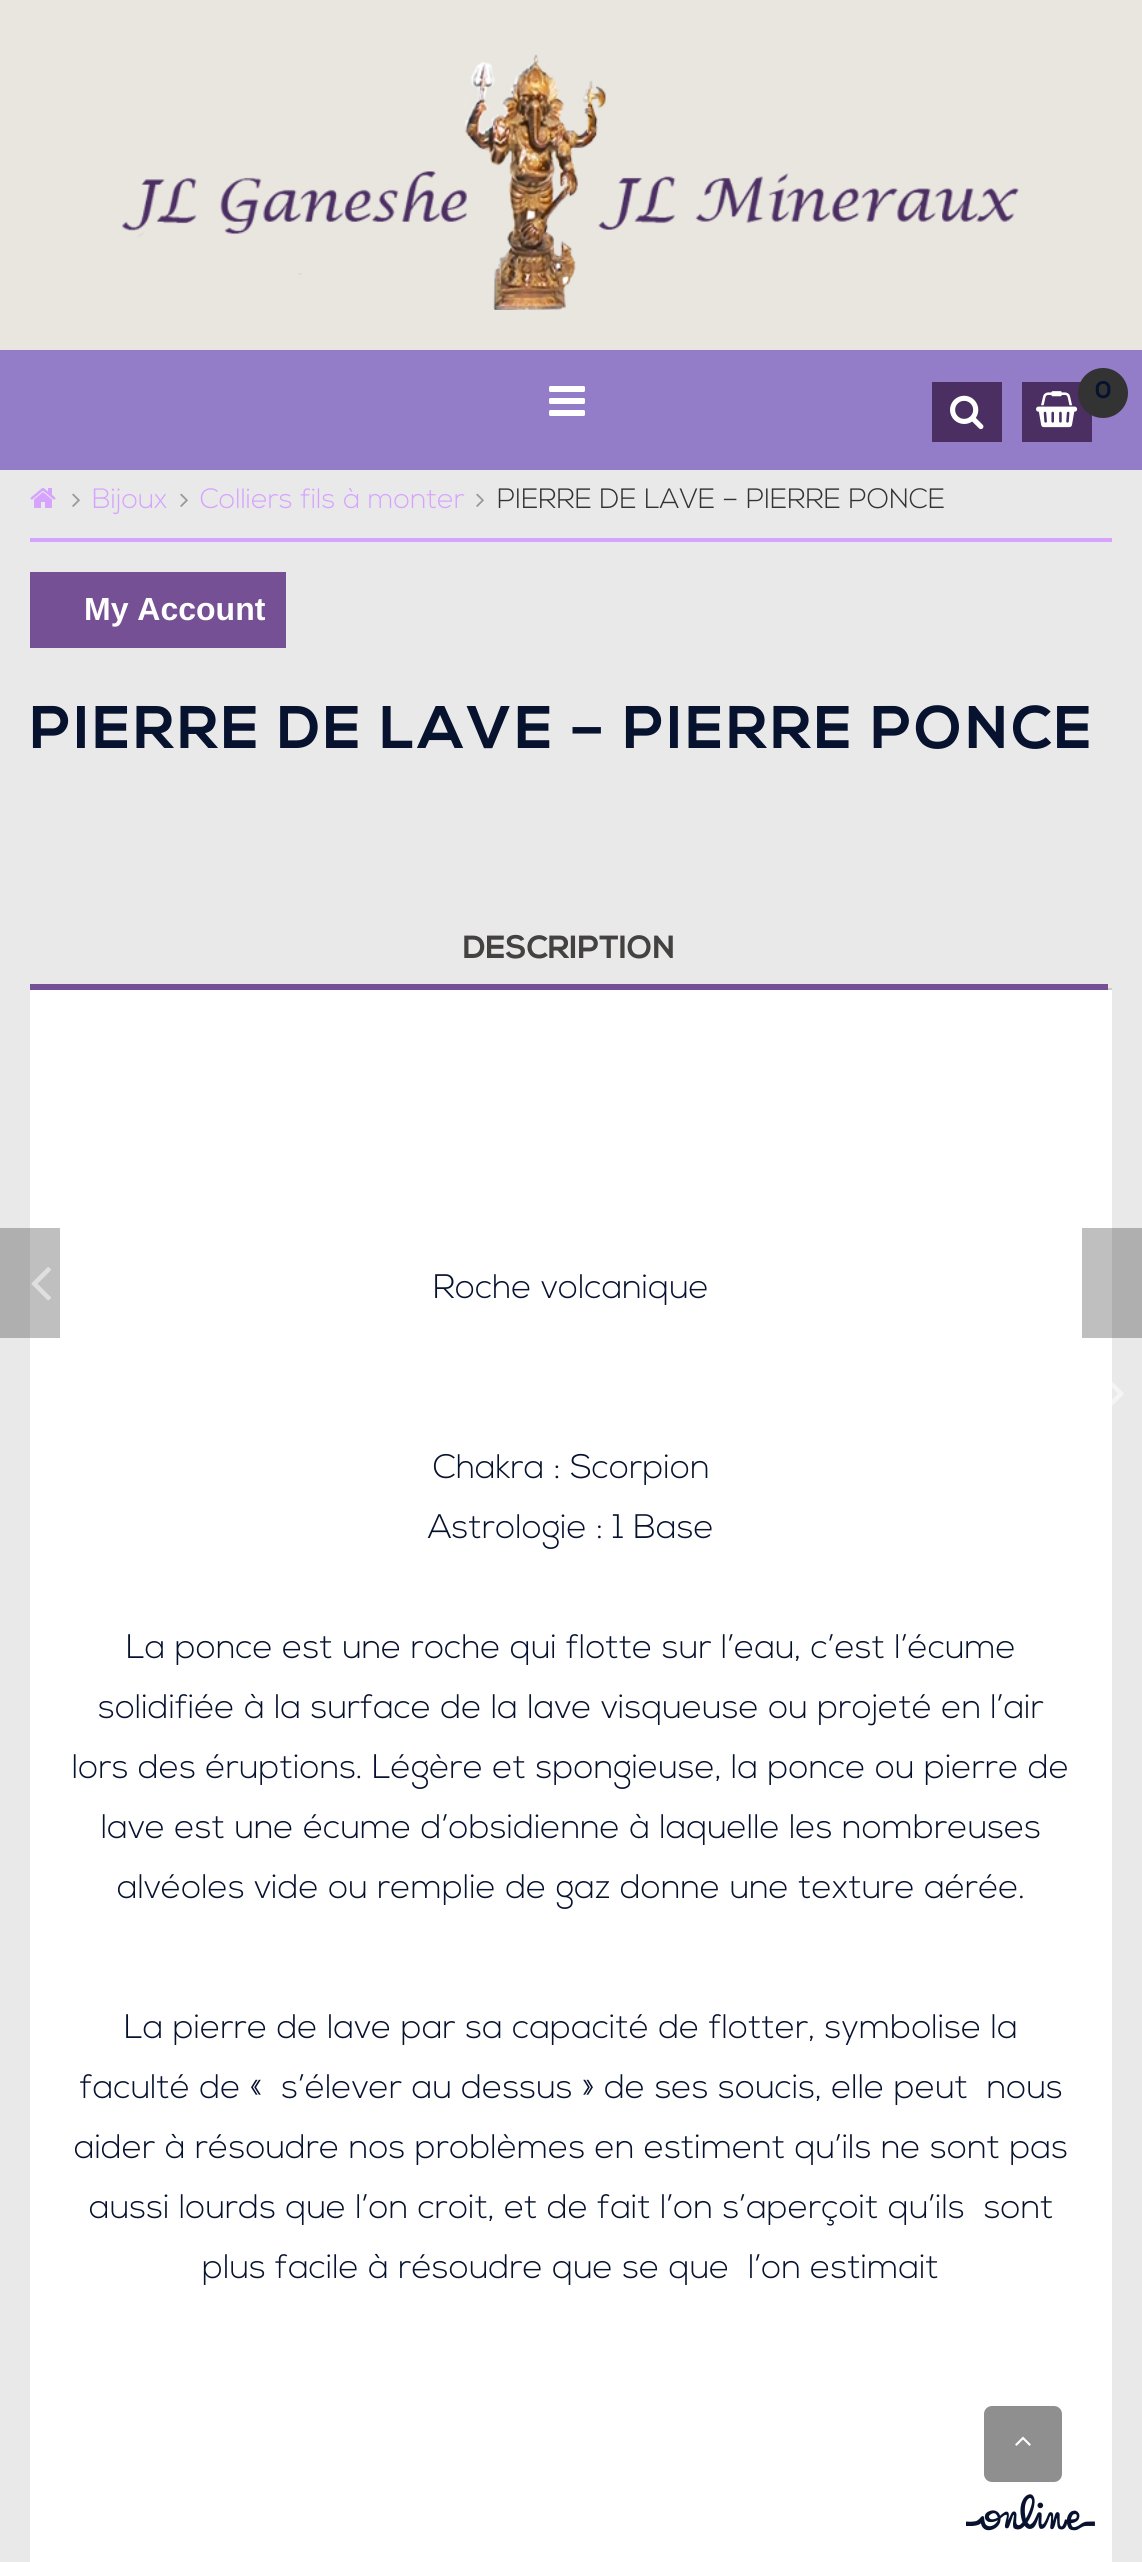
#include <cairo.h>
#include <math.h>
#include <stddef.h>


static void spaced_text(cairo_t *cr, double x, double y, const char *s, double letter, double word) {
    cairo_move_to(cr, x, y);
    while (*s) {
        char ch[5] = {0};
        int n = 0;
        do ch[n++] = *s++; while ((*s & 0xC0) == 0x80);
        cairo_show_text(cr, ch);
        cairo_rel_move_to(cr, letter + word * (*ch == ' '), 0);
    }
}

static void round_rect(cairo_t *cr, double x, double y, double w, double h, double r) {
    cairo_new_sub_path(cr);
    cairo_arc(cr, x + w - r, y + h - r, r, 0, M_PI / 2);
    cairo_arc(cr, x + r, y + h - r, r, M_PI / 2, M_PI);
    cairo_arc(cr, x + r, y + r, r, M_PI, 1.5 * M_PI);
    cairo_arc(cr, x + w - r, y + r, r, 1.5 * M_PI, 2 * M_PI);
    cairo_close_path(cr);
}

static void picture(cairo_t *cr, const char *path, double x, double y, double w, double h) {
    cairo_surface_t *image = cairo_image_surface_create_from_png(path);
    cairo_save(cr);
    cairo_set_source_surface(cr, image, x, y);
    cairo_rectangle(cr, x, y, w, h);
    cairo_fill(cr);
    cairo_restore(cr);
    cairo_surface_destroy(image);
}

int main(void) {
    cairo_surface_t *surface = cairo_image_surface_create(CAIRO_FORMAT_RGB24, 1142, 2562);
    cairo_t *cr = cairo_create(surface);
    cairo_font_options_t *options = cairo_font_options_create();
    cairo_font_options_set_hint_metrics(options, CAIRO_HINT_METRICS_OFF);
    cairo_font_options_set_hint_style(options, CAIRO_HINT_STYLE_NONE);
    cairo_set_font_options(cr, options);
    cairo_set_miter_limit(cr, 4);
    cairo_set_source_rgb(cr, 0.914, 0.914, 0.914);
    cairo_paint(cr);
    cairo_set_source_rgb(cr, 0.686, 0.686, 0.686);
    cairo_rectangle(cr, 0, 1228, 30, 110);
    cairo_fill(cr);
    cairo_rectangle(cr, 1112, 1228, 30, 110);
    cairo_fill(cr);
    cairo_set_source_rgb(cr, 0.914, 0.902, 0.878);
    cairo_rectangle(cr, 0, 0, 1142, 350);
    cairo_fill(cr);
    picture(cr, "img1.png", 122, 54, 897, 256);
    cairo_set_source_rgb(cr, 0.58, 0.49, 0.784);
    cairo_rectangle(cr, 0, 350, 1142, 120);
    cairo_fill(cr);
    picture(cr, "img2.png", 549, 386, 36, 30);
    cairo_set_source_rgb(cr, 0.294, 0.18, 0.384);
    cairo_rectangle(cr, 932, 382, 70, 60);
    cairo_fill(cr);
    picture(cr, "img3.png", 950, 395, 34, 35);
    cairo_rectangle(cr, 1022, 382, 70, 60);
    cairo_fill(cr);
    picture(cr, "img4.png", 1036, 391, 42, 37);
    cairo_set_source_rgb(cr, 0.2, 0.2, 0.2);
    cairo_arc(cr, 1103, 393, 25, 0, 2 * M_PI);
    cairo_fill(cr);
    cairo_select_font_face(cr, "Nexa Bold", CAIRO_FONT_SLANT_NORMAL, CAIRO_FONT_WEIGHT_BOLD);
    cairo_set_font_size(cr, 24);
    cairo_set_source_rgb(cr, 0.031, 0.071, 0.184);
    cairo_move_to(cr, 1095, 398);
    cairo_show_text(cr, "0");
    cairo_set_source_rgb(cr, 0.839, 0.639, 1);
    cairo_rectangle(cr, 30, 538, 1082, 4);
    cairo_fill(cr);
    picture(cr, "img5.png", 30, 488, 26, 20);
    picture(cr, "img6.png", 72, 493, 8, 14);
    cairo_select_font_face(cr, "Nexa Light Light", CAIRO_FONT_SLANT_NORMAL, CAIRO_FONT_WEIGHT_NORMAL);
    cairo_set_font_size(cr, 28);
    cairo_move_to(cr, 92, 508);
    cairo_show_text(cr, "Bijoux");
    picture(cr, "img6.png", 180, 493, 8, 14);
    cairo_move_to(cr, 200, 508);
    cairo_show_text(cr, "Colliers fils à monter");
    picture(cr, "img6.png", 476, 493, 8, 14);
    cairo_set_source_rgb(cr, 0.2, 0.2, 0.2);
    cairo_move_to(cr, 497, 508);
    cairo_show_text(cr, "PIERRE DE LAVE – PIERRE PONCE");
    cairo_set_source_rgb(cr, 0.463, 0.314, 0.58);
    cairo_rectangle(cr, 30, 572, 256, 76);
    cairo_fill(cr);
    cairo_select_font_face(cr, "Liberation Sans", CAIRO_FONT_SLANT_NORMAL, CAIRO_FONT_WEIGHT_BOLD);
    cairo_set_font_size(cr, 32);
    cairo_set_source_rgb(cr, 1, 1, 1);
    cairo_move_to(cr, 84, 620);
    cairo_show_text(cr, "My Account");
    cairo_select_font_face(cr, "Nexa Bold", CAIRO_FONT_SLANT_NORMAL, CAIRO_FONT_WEIGHT_BOLD);
    cairo_set_font_size(cr, 60);
    cairo_set_source_rgb(cr, 0.031, 0.071, 0.184);
    spaced_text(cr, 30, 748, "PIERRE DE LAVE – PIERRE PONCE", 3.4, 0);
    cairo_set_source_rgb(cr, 1, 1, 1);
    cairo_rectangle(cr, 30, 990, 1082, 1572);
    cairo_fill(cr);
    cairo_set_source_rgb(cr, 0.749, 0.749, 0.749);
    cairo_rectangle(cr, 30, 1228, 30, 110);
    cairo_fill(cr);
    picture(cr, "img7.png", 31, 1267, 20, 34);
    picture(cr, "img8.png", 1112, 1382, 12, 24);
    cairo_set_font_size(cr, 32);
    cairo_set_source_rgb(cr, 0.267, 0.255, 0.255);
    cairo_move_to(cr, 463, 958);
    cairo_show_text(cr, "DESCRIPTION");
    cairo_set_source_rgb(cr, 0.463, 0.314, 0.58);
    cairo_rectangle(cr, 30, 984, 1078, 6);
    cairo_fill(cr);
    cairo_set_source_rgb(cr, 0.749, 0.749, 0.749);
    cairo_rectangle(cr, 1082, 1228, 30, 110);
    cairo_fill(cr);
    cairo_set_source_rgb(cr, 0.8, 0.8, 0.8);
    cairo_rectangle(cr, 1108, 988, 4, 2);
    cairo_fill(cr);
    cairo_select_font_face(cr, "Nexa Light Light", CAIRO_FONT_SLANT_NORMAL, CAIRO_FONT_WEIGHT_NORMAL);
    cairo_set_font_size(cr, 34);
    cairo_set_source_rgb(cr, 0.031, 0.071, 0.184);
    cairo_move_to(cr, 433, 1298);
    cairo_show_text(cr, "Roche volcanique");
    cairo_move_to(cr, 433, 1478);
    cairo_show_text(cr, "Chakra : Scorpion");
    cairo_move_to(cr, 428, 1538);
    cairo_show_text(cr, "Astrologie : 1 Base");
    cairo_move_to(cr, 126, 1658);
    cairo_show_text(cr, "La ponce est une roche qui flotte sur l’eau, c’est l’écume");
    cairo_move_to(cr, 98, 1718);
    cairo_show_text(cr, "solidifiée à la surface de la lave visqueuse ou projeté en l’air");
    cairo_move_to(cr, 72, 1778);
    cairo_show_text(cr, "lors des éruptions. Légère et spongieuse, la ponce ou pierre de");
    cairo_move_to(cr, 101, 1838);
    cairo_show_text(cr, "lave est une écume d’obsidienne à laquelle les nombreuses");
    cairo_move_to(cr, 117, 1898);
    cairo_show_text(cr, "alvéoles vide ou remplie de gaz donne une texture aérée.");
    cairo_move_to(cr, 124, 2038);
    cairo_show_text(cr, "La pierre de lave par sa capacité de flotter, symbolise la");
    cairo_move_to(cr, 80, 2098);
    cairo_show_text(cr, "faculté de «  s’élever au dessus » de ses soucis, elle peut  nous");
    cairo_move_to(cr, 74, 2158);
    cairo_show_text(cr, "aider à résoudre nos problèmes en estiment qu’ils ne sont pas");
    cairo_move_to(cr, 89, 2218);
    cairo_show_text(cr, "aussi lourds que l’on croit, et de fait l’on s’aperçoit qu’ils  sont");
    cairo_move_to(cr, 202, 2278);
    cairo_show_text(cr, "plus facile à résoudre que se que  l’on estimait");
    picture(cr, "img9.png", 966, 2494, 129, 37);
    cairo_set_source_rgb(cr, 0.561, 0.561, 0.561);
    round_rect(cr, 984, 2406, 78, 76, 8);
    cairo_fill(cr);
    picture(cr, "img10.png", 1015, 2436, 16, 10);
    cairo_surface_write_to_png(surface, "page.png");
    cairo_font_options_destroy(options);
    cairo_destroy(cr);
    cairo_surface_destroy(surface);
    return 0;
}
